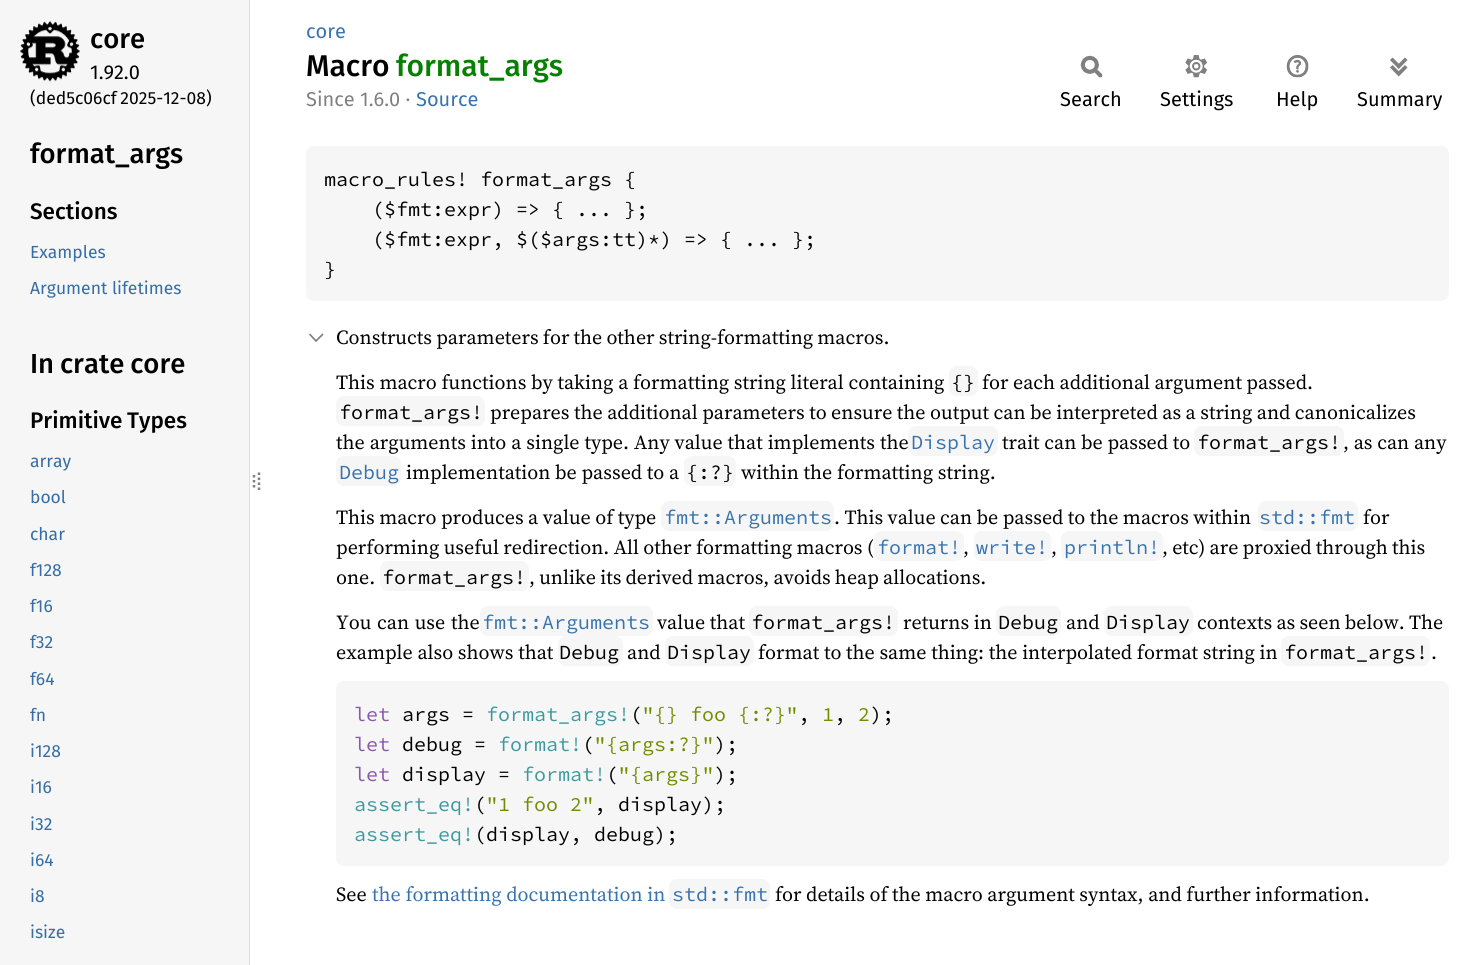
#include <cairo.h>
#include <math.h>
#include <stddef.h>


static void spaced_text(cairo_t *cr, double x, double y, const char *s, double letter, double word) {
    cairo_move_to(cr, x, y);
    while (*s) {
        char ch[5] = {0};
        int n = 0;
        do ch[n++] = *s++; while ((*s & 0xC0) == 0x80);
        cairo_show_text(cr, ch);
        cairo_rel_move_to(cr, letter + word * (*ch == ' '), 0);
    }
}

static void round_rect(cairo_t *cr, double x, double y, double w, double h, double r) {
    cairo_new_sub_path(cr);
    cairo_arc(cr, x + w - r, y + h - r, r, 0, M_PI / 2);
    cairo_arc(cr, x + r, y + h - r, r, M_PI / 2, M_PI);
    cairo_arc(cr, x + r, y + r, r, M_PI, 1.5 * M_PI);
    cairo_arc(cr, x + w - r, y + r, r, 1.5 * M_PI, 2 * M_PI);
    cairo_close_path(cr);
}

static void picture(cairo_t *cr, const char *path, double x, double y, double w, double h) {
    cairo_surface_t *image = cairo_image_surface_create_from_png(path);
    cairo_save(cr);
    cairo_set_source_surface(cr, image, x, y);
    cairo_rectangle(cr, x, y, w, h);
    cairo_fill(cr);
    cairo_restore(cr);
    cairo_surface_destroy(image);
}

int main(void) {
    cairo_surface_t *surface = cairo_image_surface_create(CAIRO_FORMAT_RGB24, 1467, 965);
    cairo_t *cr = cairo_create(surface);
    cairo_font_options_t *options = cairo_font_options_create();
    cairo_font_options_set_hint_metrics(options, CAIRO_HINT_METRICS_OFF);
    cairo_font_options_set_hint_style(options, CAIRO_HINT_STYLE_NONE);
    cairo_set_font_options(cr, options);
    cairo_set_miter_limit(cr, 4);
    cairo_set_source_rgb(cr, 1, 1, 1);
    cairo_paint(cr);
    cairo_set_source_rgb(cr, 0.961, 0.961, 0.961);
    cairo_rectangle(cr, 0, 0, 249, 965);
    cairo_fill(cr);
    cairo_set_source_rgb(cr, 0.867, 0.867, 0.867);
    cairo_rectangle(cr, 249, 0, 1, 965);
    cairo_fill(cr);
    picture(cr, "img1.png", 20, 21, 60, 61);
    cairo_select_font_face(cr, "Fira Sans Medium", CAIRO_FONT_SLANT_NORMAL, CAIRO_FONT_WEIGHT_NORMAL);
    cairo_set_font_size(cr, 27.5);
    cairo_set_source_rgb(cr, 0, 0, 0);
    cairo_move_to(cr, 90, 48);
    cairo_show_text(cr, "core");
    cairo_select_font_face(cr, "Fira Sans", CAIRO_FONT_SLANT_NORMAL, CAIRO_FONT_WEIGHT_NORMAL);
    cairo_set_font_size(cr, 20);
    cairo_move_to(cr, 90, 79);
    cairo_show_text(cr, "1.92.0");
    cairo_set_font_size(cr, 17.5);
    spaced_text(cr, 30, 104, "(ded5c06cf 2025-12-08)", 0, -1);
    cairo_select_font_face(cr, "Fira Sans Medium", CAIRO_FONT_SLANT_NORMAL, CAIRO_FONT_WEIGHT_NORMAL);
    cairo_set_font_size(cr, 27.5);
    cairo_move_to(cr, 30, 163);
    cairo_show_text(cr, "format_args");
    cairo_set_font_size(cr, 22.5);
    cairo_move_to(cr, 30, 219);
    cairo_show_text(cr, "Sections");
    cairo_select_font_face(cr, "Fira Sans", CAIRO_FONT_SLANT_NORMAL, CAIRO_FONT_WEIGHT_NORMAL);
    cairo_set_font_size(cr, 17.5);
    cairo_set_source_rgb(cr, 0.208, 0.427, 0.643);
    cairo_move_to(cr, 30, 258);
    cairo_show_text(cr, "Examples");
    cairo_move_to(cr, 30, 294);
    cairo_show_text(cr, "Argument lifetimes");
    cairo_select_font_face(cr, "Fira Sans Medium", CAIRO_FONT_SLANT_NORMAL, CAIRO_FONT_WEIGHT_NORMAL);
    cairo_set_font_size(cr, 27.5);
    cairo_set_source_rgb(cr, 0, 0, 0);
    spaced_text(cr, 30, 373, "In crate core", 0, -1);
    cairo_set_font_size(cr, 22.5);
    spaced_text(cr, 30, 428, "Primitive Types", 0, -1);
    cairo_select_font_face(cr, "Fira Sans", CAIRO_FONT_SLANT_NORMAL, CAIRO_FONT_WEIGHT_NORMAL);
    cairo_set_font_size(cr, 17.5);
    cairo_set_source_rgb(cr, 0.208, 0.427, 0.643);
    cairo_move_to(cr, 30, 467);
    cairo_show_text(cr, "array");
    cairo_move_to(cr, 30, 503);
    cairo_show_text(cr, "bool");
    cairo_move_to(cr, 30, 540);
    cairo_show_text(cr, "char");
    cairo_move_to(cr, 30, 576);
    cairo_show_text(cr, "f128");
    cairo_move_to(cr, 30, 612);
    cairo_show_text(cr, "f16");
    cairo_move_to(cr, 30, 648);
    cairo_show_text(cr, "f32");
    cairo_move_to(cr, 30, 685);
    cairo_show_text(cr, "f64");
    cairo_move_to(cr, 30, 721);
    cairo_show_text(cr, "fn");
    cairo_move_to(cr, 30, 757);
    cairo_show_text(cr, "i128");
    cairo_move_to(cr, 30, 793);
    cairo_show_text(cr, "i16");
    cairo_move_to(cr, 30, 830);
    cairo_show_text(cr, "i32");
    cairo_move_to(cr, 30, 866);
    cairo_show_text(cr, "i64");
    cairo_move_to(cr, 30, 902);
    cairo_show_text(cr, "i8");
    cairo_move_to(cr, 30, 938);
    cairo_show_text(cr, "isize");
    cairo_new_path(cr);
    cairo_move_to(cr, 254, 475);
    cairo_line_to(cr, 254, 477.5);
    cairo_move_to(cr, 254, 480);
    cairo_line_to(cr, 254, 482.5);
    cairo_move_to(cr, 254, 485);
    cairo_line_to(cr, 254, 487.5);
    cairo_set_source_rgb(cr, 0.502, 0.502, 0.502);
    cairo_set_line_width(cr, 2.5);
    cairo_stroke(cr);
    cairo_new_path(cr);
    cairo_move_to(cr, 259, 472.5);
    cairo_line_to(cr, 259, 492.5);
    cairo_set_dash(cr, (double[]){2.5, 2.5}, 2, 0);
    cairo_stroke(cr);
    cairo_set_font_size(cr, 20);
    cairo_set_source_rgb(cr, 0.22, 0.451, 0.678);
    cairo_move_to(cr, 306, 38);
    cairo_show_text(cr, "core");
    cairo_select_font_face(cr, "Fira Sans Medium", CAIRO_FONT_SLANT_NORMAL, CAIRO_FONT_WEIGHT_NORMAL);
    cairo_set_font_size(cr, 30);
    cairo_set_source_rgb(cr, 0, 0, 0);
    cairo_move_to(cr, 306, 76);
    cairo_show_text(cr, "Macro");
    cairo_set_source_rgb(cr, 0.024, 0.502, 0);
    cairo_move_to(cr, 396, 76);
    cairo_show_text(cr, "format_args");
    cairo_select_font_face(cr, "Fira Sans", CAIRO_FONT_SLANT_NORMAL, CAIRO_FONT_WEIGHT_NORMAL);
    cairo_set_font_size(cr, 20);
    cairo_set_source_rgb(cr, 0.502, 0.502, 0.502);
    cairo_move_to(cr, 306, 106);
    cairo_show_text(cr, "Since 1.6.0 ·");
    cairo_set_source_rgb(cr, 0.22, 0.451, 0.678);
    cairo_move_to(cr, 416, 106);
    cairo_show_text(cr, "Source");
    picture(cr, "img2.png", 1080, 55, 23, 23);
    cairo_set_source_rgb(cr, 0, 0, 0);
    cairo_move_to(cr, 1060, 106);
    cairo_show_text(cr, "Search");
    picture(cr, "img3.png", 1185, 55, 22, 23);
    cairo_move_to(cr, 1160, 106);
    cairo_show_text(cr, "Settings");
    picture(cr, "img4.png", 1286, 55, 23, 23);
    cairo_move_to(cr, 1276, 106);
    cairo_show_text(cr, "Help");
    picture(cr, "img5.png", 1390, 57, 18, 20);
    cairo_move_to(cr, 1357, 106);
    cairo_show_text(cr, "Summary");
    cairo_set_source_rgb(cr, 0.961, 0.961, 0.961);
    round_rect(cr, 306, 146, 1143, 155, 8);
    cairo_fill(cr);
    cairo_select_font_face(cr, "Source Code Pro", CAIRO_FONT_SLANT_NORMAL, CAIRO_FONT_WEIGHT_NORMAL);
    cairo_set_source_rgb(cr, 0, 0, 0);
    cairo_move_to(cr, 324, 186);
    cairo_show_text(cr, "macro_rules! format_args {");
    cairo_move_to(cr, 372, 216);
    cairo_show_text(cr, "($fmt:expr) => { ... };");
    cairo_move_to(cr, 372, 246);
    cairo_show_text(cr, "($fmt:expr, $($args:tt)*) => { ... };");
    cairo_move_to(cr, 324, 276);
    cairo_show_text(cr, "}");
    cairo_new_path(cr);
    cairo_move_to(cr, 309.5, 334);
    cairo_line_to(cr, 316, 341);
    cairo_line_to(cr, 323, 334);
    cairo_set_source_rgb(cr, 0.502, 0.502, 0.502);
    cairo_set_line_width(cr, 1.7);
    cairo_set_dash(cr, NULL, 0, 0);
    cairo_stroke(cr);
    cairo_select_font_face(cr, "Source Serif 4", CAIRO_FONT_SLANT_NORMAL, CAIRO_FONT_WEIGHT_NORMAL);
    cairo_set_source_rgb(cr, 0, 0, 0);
    spaced_text(cr, 336, 344, "Constructs parameters for the other string-formatting macros.", 0, -0.5);
    cairo_move_to(cr, 336, 389);
    cairo_show_text(cr, "This macro functions by taking a formatting string literal containing");
    cairo_set_source_rgb(cr, 0.961, 0.961, 0.961);
    round_rect(cr, 949, 366, 29, 30, 8);
    cairo_fill(cr);
    cairo_select_font_face(cr, "Source Code Pro", CAIRO_FONT_SLANT_NORMAL, CAIRO_FONT_WEIGHT_NORMAL);
    cairo_set_source_rgb(cr, 0, 0, 0);
    cairo_move_to(cr, 951, 389);
    cairo_show_text(cr, "{}");
    cairo_select_font_face(cr, "Source Serif 4", CAIRO_FONT_SLANT_NORMAL, CAIRO_FONT_WEIGHT_NORMAL);
    spaced_text(cr, 982, 389, "for each additional argument passed.", 0, -0.25);
    cairo_set_source_rgb(cr, 0.961, 0.961, 0.961);
    round_rect(cr, 336, 396, 149, 30, 8);
    cairo_fill(cr);
    cairo_select_font_face(cr, "Source Code Pro", CAIRO_FONT_SLANT_NORMAL, CAIRO_FONT_WEIGHT_NORMAL);
    cairo_set_source_rgb(cr, 0, 0, 0);
    cairo_move_to(cr, 339, 419);
    cairo_show_text(cr, "format_args!");
    cairo_select_font_face(cr, "Source Serif 4", CAIRO_FONT_SLANT_NORMAL, CAIRO_FONT_WEIGHT_NORMAL);
    spaced_text(cr, 490, 419, "prepares the additional parameters to ensure the output can be interpreted as a string and canonicalizes", 0, -0.2);
    spaced_text(cr, 336, 449, "the arguments into a single type. Any value that implements the", 0, 0.25);
    cairo_set_source_rgb(cr, 0.961, 0.961, 0.961);
    round_rect(cr, 908, 426, 90, 30, 8);
    cairo_fill(cr);
    cairo_select_font_face(cr, "Source Code Pro", CAIRO_FONT_SLANT_NORMAL, CAIRO_FONT_WEIGHT_NORMAL);
    cairo_set_source_rgb(cr, 0.22, 0.451, 0.678);
    cairo_move_to(cr, 911, 449);
    cairo_show_text(cr, "Display");
    cairo_select_font_face(cr, "Source Serif 4", CAIRO_FONT_SLANT_NORMAL, CAIRO_FONT_WEIGHT_NORMAL);
    cairo_set_source_rgb(cr, 0, 0, 0);
    cairo_move_to(cr, 1002, 449);
    cairo_show_text(cr, "trait can be passed to");
    cairo_set_source_rgb(cr, 0.961, 0.961, 0.961);
    round_rect(cr, 1194, 426, 150, 30, 8);
    cairo_fill(cr);
    cairo_select_font_face(cr, "Source Code Pro", CAIRO_FONT_SLANT_NORMAL, CAIRO_FONT_WEIGHT_NORMAL);
    cairo_set_source_rgb(cr, 0, 0, 0);
    cairo_move_to(cr, 1197, 449);
    cairo_show_text(cr, "format_args!");
    cairo_select_font_face(cr, "Source Serif 4", CAIRO_FONT_SLANT_NORMAL, CAIRO_FONT_WEIGHT_NORMAL);
    cairo_move_to(cr, 1343, 449);
    cairo_show_text(cr, ", as can any");
    cairo_set_source_rgb(cr, 0.961, 0.961, 0.961);
    round_rect(cr, 336, 456, 65, 30, 8);
    cairo_fill(cr);
    cairo_select_font_face(cr, "Source Code Pro", CAIRO_FONT_SLANT_NORMAL, CAIRO_FONT_WEIGHT_NORMAL);
    cairo_set_source_rgb(cr, 0.22, 0.451, 0.678);
    cairo_move_to(cr, 339, 479);
    cairo_show_text(cr, "Debug");
    cairo_select_font_face(cr, "Source Serif 4", CAIRO_FONT_SLANT_NORMAL, CAIRO_FONT_WEIGHT_NORMAL);
    cairo_set_source_rgb(cr, 0, 0, 0);
    cairo_move_to(cr, 406, 479);
    cairo_show_text(cr, "implementation be passed to a");
    cairo_set_source_rgb(cr, 0.961, 0.961, 0.961);
    round_rect(cr, 684, 456, 52, 30, 8);
    cairo_fill(cr);
    cairo_select_font_face(cr, "Source Code Pro", CAIRO_FONT_SLANT_NORMAL, CAIRO_FONT_WEIGHT_NORMAL);
    cairo_set_source_rgb(cr, 0, 0, 0);
    cairo_move_to(cr, 686, 479);
    cairo_show_text(cr, "{:?}");
    cairo_select_font_face(cr, "Source Serif 4", CAIRO_FONT_SLANT_NORMAL, CAIRO_FONT_WEIGHT_NORMAL);
    cairo_move_to(cr, 741, 479);
    cairo_show_text(cr, "within the formatting string.");
    spaced_text(cr, 336, 524, "This macro produces a value of type", 0, -0.25);
    cairo_set_source_rgb(cr, 0.961, 0.961, 0.961);
    round_rect(cr, 661, 501, 173, 30, 8);
    cairo_fill(cr);
    cairo_select_font_face(cr, "Source Code Pro", CAIRO_FONT_SLANT_NORMAL, CAIRO_FONT_WEIGHT_NORMAL);
    cairo_set_source_rgb(cr, 0.22, 0.451, 0.678);
    cairo_move_to(cr, 664, 524);
    cairo_show_text(cr, "fmt::Arguments");
    cairo_select_font_face(cr, "Source Serif 4", CAIRO_FONT_SLANT_NORMAL, CAIRO_FONT_WEIGHT_NORMAL);
    cairo_set_source_rgb(cr, 0, 0, 0);
    spaced_text(cr, 834, 524, ". This value can be passed to the macros within", 0, -0.25);
    cairo_set_source_rgb(cr, 0.961, 0.961, 0.961);
    round_rect(cr, 1258, 501, 100, 30, 8);
    cairo_fill(cr);
    cairo_select_font_face(cr, "Source Code Pro", CAIRO_FONT_SLANT_NORMAL, CAIRO_FONT_WEIGHT_NORMAL);
    cairo_set_source_rgb(cr, 0.22, 0.451, 0.678);
    cairo_move_to(cr, 1259, 524);
    cairo_show_text(cr, "std::fmt");
    cairo_select_font_face(cr, "Source Serif 4", CAIRO_FONT_SLANT_NORMAL, CAIRO_FONT_WEIGHT_NORMAL);
    cairo_set_source_rgb(cr, 0, 0, 0);
    cairo_move_to(cr, 1363, 524);
    cairo_show_text(cr, "for");
    spaced_text(cr, 336, 554, "performing useful redirection. All other formatting macros (", 0, -0.25);
    cairo_set_source_rgb(cr, 0.961, 0.961, 0.961);
    round_rect(cr, 874, 531, 90, 30, 8);
    cairo_fill(cr);
    cairo_select_font_face(cr, "Source Code Pro", CAIRO_FONT_SLANT_NORMAL, CAIRO_FONT_WEIGHT_NORMAL);
    cairo_set_source_rgb(cr, 0.22, 0.451, 0.678);
    cairo_move_to(cr, 877, 554);
    cairo_show_text(cr, "format!");
    cairo_select_font_face(cr, "Source Serif 4", CAIRO_FONT_SLANT_NORMAL, CAIRO_FONT_WEIGHT_NORMAL);
    cairo_set_source_rgb(cr, 0, 0, 0);
    cairo_move_to(cr, 963, 554);
    cairo_show_text(cr, ",");
    cairo_set_source_rgb(cr, 0.961, 0.961, 0.961);
    round_rect(cr, 974, 531, 77, 30, 8);
    cairo_fill(cr);
    cairo_select_font_face(cr, "Source Code Pro", CAIRO_FONT_SLANT_NORMAL, CAIRO_FONT_WEIGHT_NORMAL);
    cairo_set_source_rgb(cr, 0.22, 0.451, 0.678);
    cairo_move_to(cr, 976, 554);
    cairo_show_text(cr, "write!");
    cairo_select_font_face(cr, "Source Serif 4", CAIRO_FONT_SLANT_NORMAL, CAIRO_FONT_WEIGHT_NORMAL);
    cairo_set_source_rgb(cr, 0, 0, 0);
    cairo_move_to(cr, 1051, 554);
    cairo_show_text(cr, ",");
    cairo_set_source_rgb(cr, 0.961, 0.961, 0.961);
    round_rect(cr, 1061, 531, 102, 30, 8);
    cairo_fill(cr);
    cairo_select_font_face(cr, "Source Code Pro", CAIRO_FONT_SLANT_NORMAL, CAIRO_FONT_WEIGHT_NORMAL);
    cairo_set_source_rgb(cr, 0.22, 0.451, 0.678);
    cairo_move_to(cr, 1064, 554);
    cairo_show_text(cr, "println!");
    cairo_select_font_face(cr, "Source Serif 4", CAIRO_FONT_SLANT_NORMAL, CAIRO_FONT_WEIGHT_NORMAL);
    cairo_set_source_rgb(cr, 0, 0, 0);
    spaced_text(cr, 1162, 554, ", etc) are proxied through this", 0, -0.5);
    cairo_move_to(cr, 336, 584);
    cairo_show_text(cr, "one.");
    cairo_set_source_rgb(cr, 0.961, 0.961, 0.961);
    round_rect(cr, 380, 561, 149, 30, 8);
    cairo_fill(cr);
    cairo_select_font_face(cr, "Source Code Pro", CAIRO_FONT_SLANT_NORMAL, CAIRO_FONT_WEIGHT_NORMAL);
    cairo_set_source_rgb(cr, 0, 0, 0);
    cairo_move_to(cr, 382, 584);
    cairo_show_text(cr, "format_args!");
    cairo_select_font_face(cr, "Source Serif 4", CAIRO_FONT_SLANT_NORMAL, CAIRO_FONT_WEIGHT_NORMAL);
    spaced_text(cr, 529, 584, ", unlike its derived macros, avoids heap allocations.", 0, -0.5);
    spaced_text(cr, 336, 629, "You can use the", 0, 1);
    cairo_set_source_rgb(cr, 0.961, 0.961, 0.961);
    round_rect(cr, 480, 606, 173, 30, 8);
    cairo_fill(cr);
    cairo_select_font_face(cr, "Source Code Pro", CAIRO_FONT_SLANT_NORMAL, CAIRO_FONT_WEIGHT_NORMAL);
    cairo_set_source_rgb(cr, 0.22, 0.451, 0.678);
    cairo_move_to(cr, 482, 629);
    cairo_show_text(cr, "fmt::Arguments");
    cairo_select_font_face(cr, "Source Serif 4", CAIRO_FONT_SLANT_NORMAL, CAIRO_FONT_WEIGHT_NORMAL);
    cairo_set_source_rgb(cr, 0, 0, 0);
    cairo_move_to(cr, 657, 629);
    cairo_show_text(cr, "value that");
    cairo_set_source_rgb(cr, 0.961, 0.961, 0.961);
    round_rect(cr, 749, 606, 149, 30, 8);
    cairo_fill(cr);
    cairo_select_font_face(cr, "Source Code Pro", CAIRO_FONT_SLANT_NORMAL, CAIRO_FONT_WEIGHT_NORMAL);
    cairo_set_source_rgb(cr, 0, 0, 0);
    cairo_move_to(cr, 751, 629);
    cairo_show_text(cr, "format_args!");
    cairo_select_font_face(cr, "Source Serif 4", CAIRO_FONT_SLANT_NORMAL, CAIRO_FONT_WEIGHT_NORMAL);
    cairo_move_to(cr, 903, 629);
    cairo_show_text(cr, "returns in");
    cairo_set_source_rgb(cr, 0.961, 0.961, 0.961);
    round_rect(cr, 996, 606, 65, 30, 8);
    cairo_fill(cr);
    cairo_select_font_face(cr, "Source Code Pro", CAIRO_FONT_SLANT_NORMAL, CAIRO_FONT_WEIGHT_NORMAL);
    cairo_set_source_rgb(cr, 0, 0, 0);
    cairo_move_to(cr, 998, 629);
    cairo_show_text(cr, "Debug");
    cairo_select_font_face(cr, "Source Serif 4", CAIRO_FONT_SLANT_NORMAL, CAIRO_FONT_WEIGHT_NORMAL);
    cairo_move_to(cr, 1066, 629);
    cairo_show_text(cr, "and");
    cairo_set_source_rgb(cr, 0.961, 0.961, 0.961);
    round_rect(cr, 1104, 606, 89, 30, 8);
    cairo_fill(cr);
    cairo_select_font_face(cr, "Source Code Pro", CAIRO_FONT_SLANT_NORMAL, CAIRO_FONT_WEIGHT_NORMAL);
    cairo_set_source_rgb(cr, 0, 0, 0);
    cairo_move_to(cr, 1106, 629);
    cairo_show_text(cr, "Display");
    cairo_select_font_face(cr, "Source Serif 4", CAIRO_FONT_SLANT_NORMAL, CAIRO_FONT_WEIGHT_NORMAL);
    spaced_text(cr, 1197, 629, "contexts as seen below. The", 0, -0.5);
    cairo_move_to(cr, 336, 659);
    cairo_show_text(cr, "example also shows that");
    cairo_set_source_rgb(cr, 0.961, 0.961, 0.961);
    round_rect(cr, 558, 636, 65, 30, 8);
    cairo_fill(cr);
    cairo_select_font_face(cr, "Source Code Pro", CAIRO_FONT_SLANT_NORMAL, CAIRO_FONT_WEIGHT_NORMAL);
    cairo_set_source_rgb(cr, 0, 0, 0);
    cairo_move_to(cr, 559, 659);
    cairo_show_text(cr, "Debug");
    cairo_select_font_face(cr, "Source Serif 4", CAIRO_FONT_SLANT_NORMAL, CAIRO_FONT_WEIGHT_NORMAL);
    cairo_move_to(cr, 627, 659);
    cairo_show_text(cr, "and");
    cairo_set_source_rgb(cr, 0.961, 0.961, 0.961);
    round_rect(cr, 665, 636, 89, 30, 8);
    cairo_fill(cr);
    cairo_select_font_face(cr, "Source Code Pro", CAIRO_FONT_SLANT_NORMAL, CAIRO_FONT_WEIGHT_NORMAL);
    cairo_set_source_rgb(cr, 0, 0, 0);
    cairo_move_to(cr, 667, 659);
    cairo_show_text(cr, "Display");
    cairo_select_font_face(cr, "Source Serif 4", CAIRO_FONT_SLANT_NORMAL, CAIRO_FONT_WEIGHT_NORMAL);
    cairo_move_to(cr, 758, 659);
    cairo_show_text(cr, "format to the same thing: the interpolated format string in");
    cairo_set_source_rgb(cr, 0.961, 0.961, 0.961);
    round_rect(cr, 1281, 636, 149, 30, 8);
    cairo_fill(cr);
    cairo_select_font_face(cr, "Source Code Pro", CAIRO_FONT_SLANT_NORMAL, CAIRO_FONT_WEIGHT_NORMAL);
    cairo_set_source_rgb(cr, 0, 0, 0);
    cairo_move_to(cr, 1284, 659);
    cairo_show_text(cr, "format_args!");
    cairo_select_font_face(cr, "Source Serif 4", CAIRO_FONT_SLANT_NORMAL, CAIRO_FONT_WEIGHT_NORMAL);
    cairo_move_to(cr, 1431, 659);
    cairo_show_text(cr, ".");
    cairo_set_source_rgb(cr, 0.961, 0.961, 0.961);
    round_rect(cr, 336, 681, 1113, 185, 8);
    cairo_fill(cr);
    cairo_select_font_face(cr, "Source Code Pro", CAIRO_FONT_SLANT_NORMAL, CAIRO_FONT_WEIGHT_NORMAL);
    cairo_set_source_rgb(cr, 0.537, 0.349, 0.659);
    cairo_move_to(cr, 354, 721);
    cairo_show_text(cr, "let");
    cairo_set_source_rgb(cr, 0, 0, 0);
    cairo_move_to(cr, 402, 721);
    cairo_show_text(cr, "args =");
    cairo_set_source_rgb(cr, 0.243, 0.6, 0.624);
    cairo_move_to(cr, 486, 721);
    cairo_show_text(cr, "format_args!");
    cairo_set_source_rgb(cr, 0, 0, 0);
    cairo_move_to(cr, 630, 721);
    cairo_show_text(cr, "(");
    cairo_set_source_rgb(cr, 0.443, 0.549, 0);
    cairo_move_to(cr, 642, 721);
    cairo_show_text(cr, "\"{} foo {:?}\"");
    cairo_set_source_rgb(cr, 0, 0, 0);
    cairo_move_to(cr, 798, 721);
    cairo_show_text(cr, ",");
    cairo_set_source_rgb(cr, 0.443, 0.549, 0);
    cairo_move_to(cr, 822, 721);
    cairo_show_text(cr, "1");
    cairo_set_source_rgb(cr, 0, 0, 0);
    cairo_move_to(cr, 834, 721);
    cairo_show_text(cr, ",");
    cairo_set_source_rgb(cr, 0.443, 0.549, 0);
    cairo_move_to(cr, 858, 721);
    cairo_show_text(cr, "2");
    cairo_set_source_rgb(cr, 0, 0, 0);
    cairo_move_to(cr, 870, 721);
    cairo_show_text(cr, ");");
    cairo_set_source_rgb(cr, 0.537, 0.349, 0.659);
    cairo_move_to(cr, 354, 751);
    cairo_show_text(cr, "let");
    cairo_set_source_rgb(cr, 0, 0, 0);
    cairo_move_to(cr, 402, 751);
    cairo_show_text(cr, "debug =");
    cairo_set_source_rgb(cr, 0.243, 0.6, 0.624);
    cairo_move_to(cr, 498, 751);
    cairo_show_text(cr, "format!");
    cairo_set_source_rgb(cr, 0, 0, 0);
    cairo_move_to(cr, 582, 751);
    cairo_show_text(cr, "(");
    cairo_set_source_rgb(cr, 0.443, 0.549, 0);
    cairo_move_to(cr, 594, 751);
    cairo_show_text(cr, "\"{args:?}\"");
    cairo_set_source_rgb(cr, 0, 0, 0);
    cairo_move_to(cr, 714, 751);
    cairo_show_text(cr, ");");
    cairo_set_source_rgb(cr, 0.537, 0.349, 0.659);
    cairo_move_to(cr, 354, 781);
    cairo_show_text(cr, "let");
    cairo_set_source_rgb(cr, 0, 0, 0);
    cairo_move_to(cr, 402, 781);
    cairo_show_text(cr, "display =");
    cairo_set_source_rgb(cr, 0.243, 0.6, 0.624);
    cairo_move_to(cr, 522, 781);
    cairo_show_text(cr, "format!");
    cairo_set_source_rgb(cr, 0, 0, 0);
    cairo_move_to(cr, 606, 781);
    cairo_show_text(cr, "(");
    cairo_set_source_rgb(cr, 0.443, 0.549, 0);
    cairo_move_to(cr, 618, 781);
    cairo_show_text(cr, "\"{args}\"");
    cairo_set_source_rgb(cr, 0, 0, 0);
    cairo_move_to(cr, 714, 781);
    cairo_show_text(cr, ");");
    cairo_set_source_rgb(cr, 0.243, 0.6, 0.624);
    cairo_move_to(cr, 354, 811);
    cairo_show_text(cr, "assert_eq!");
    cairo_set_source_rgb(cr, 0, 0, 0);
    cairo_move_to(cr, 474, 811);
    cairo_show_text(cr, "(");
    cairo_set_source_rgb(cr, 0.443, 0.549, 0);
    cairo_move_to(cr, 486, 811);
    cairo_show_text(cr, "\"1 foo 2\"");
    cairo_set_source_rgb(cr, 0, 0, 0);
    cairo_move_to(cr, 594, 811);
    cairo_show_text(cr, ", display);");
    cairo_set_source_rgb(cr, 0.243, 0.6, 0.624);
    cairo_move_to(cr, 354, 841);
    cairo_show_text(cr, "assert_eq!");
    cairo_set_source_rgb(cr, 0, 0, 0);
    cairo_move_to(cr, 474, 841);
    cairo_show_text(cr, "(display, debug);");
    cairo_select_font_face(cr, "Source Serif 4", CAIRO_FONT_SLANT_NORMAL, CAIRO_FONT_WEIGHT_NORMAL);
    cairo_move_to(cr, 336, 901);
    cairo_show_text(cr, "See");
    cairo_set_source_rgb(cr, 0.22, 0.451, 0.678);
    cairo_move_to(cr, 372, 901);
    cairo_show_text(cr, "the formatting documentation in");
    cairo_set_source_rgb(cr, 0.961, 0.961, 0.961);
    round_rect(cr, 669, 879, 101, 30, 8);
    cairo_fill(cr);
    cairo_select_font_face(cr, "Source Code Pro", CAIRO_FONT_SLANT_NORMAL, CAIRO_FONT_WEIGHT_NORMAL);
    cairo_set_source_rgb(cr, 0.22, 0.451, 0.678);
    cairo_move_to(cr, 672, 901);
    cairo_show_text(cr, "std::fmt");
    cairo_select_font_face(cr, "Source Serif 4", CAIRO_FONT_SLANT_NORMAL, CAIRO_FONT_WEIGHT_NORMAL);
    cairo_set_source_rgb(cr, 0, 0, 0);
    spaced_text(cr, 775, 901, "for details of the macro argument syntax, and further information.", 0, -0.1);
    cairo_surface_write_to_png(surface, "page.png");
    cairo_font_options_destroy(options);
    cairo_destroy(cr);
    cairo_surface_destroy(surface);
    return 0;
}
